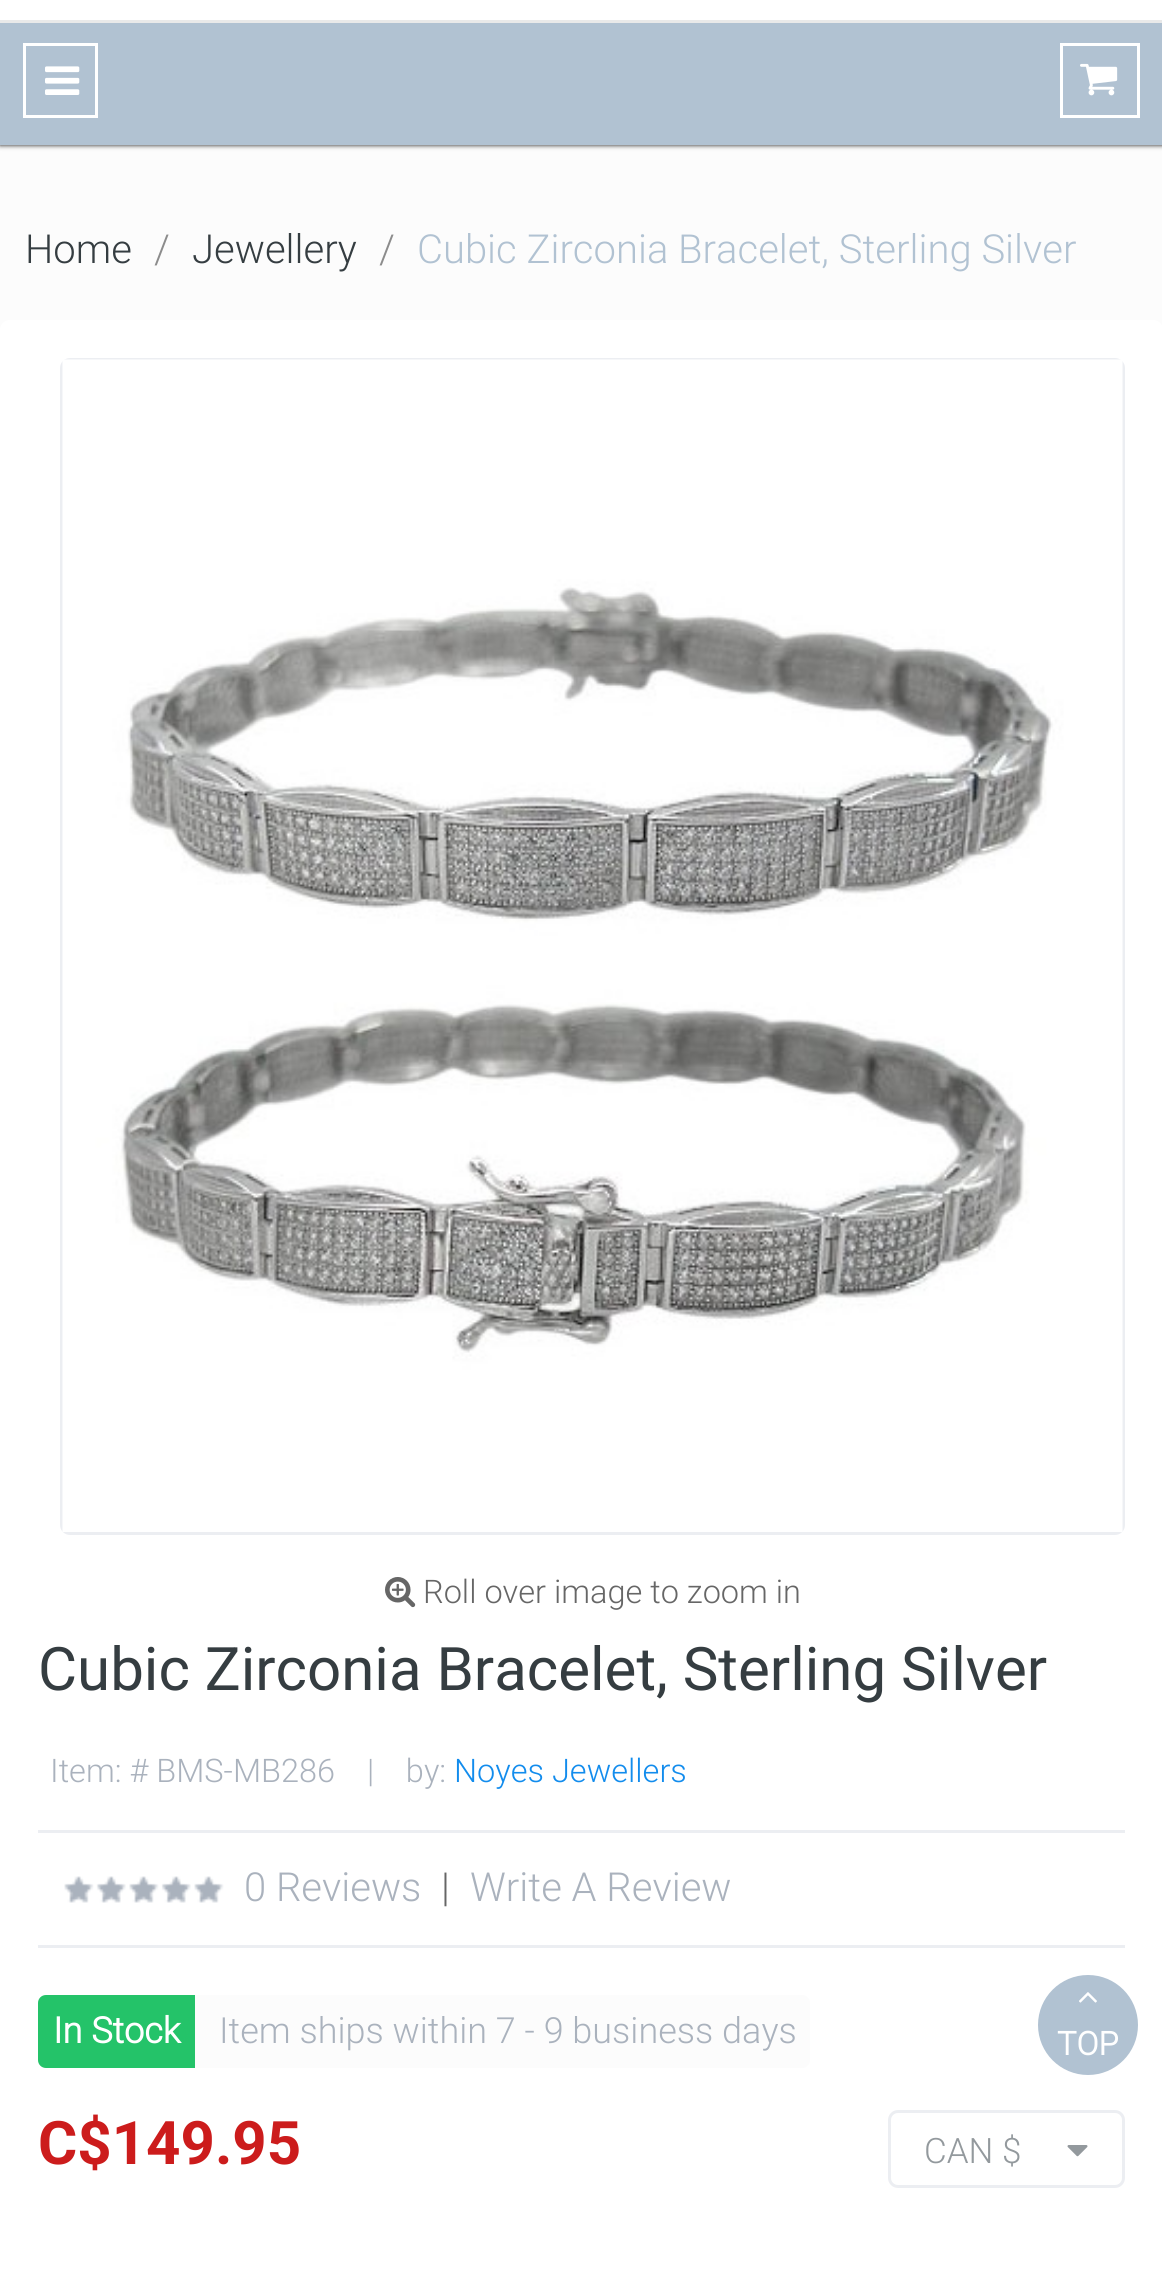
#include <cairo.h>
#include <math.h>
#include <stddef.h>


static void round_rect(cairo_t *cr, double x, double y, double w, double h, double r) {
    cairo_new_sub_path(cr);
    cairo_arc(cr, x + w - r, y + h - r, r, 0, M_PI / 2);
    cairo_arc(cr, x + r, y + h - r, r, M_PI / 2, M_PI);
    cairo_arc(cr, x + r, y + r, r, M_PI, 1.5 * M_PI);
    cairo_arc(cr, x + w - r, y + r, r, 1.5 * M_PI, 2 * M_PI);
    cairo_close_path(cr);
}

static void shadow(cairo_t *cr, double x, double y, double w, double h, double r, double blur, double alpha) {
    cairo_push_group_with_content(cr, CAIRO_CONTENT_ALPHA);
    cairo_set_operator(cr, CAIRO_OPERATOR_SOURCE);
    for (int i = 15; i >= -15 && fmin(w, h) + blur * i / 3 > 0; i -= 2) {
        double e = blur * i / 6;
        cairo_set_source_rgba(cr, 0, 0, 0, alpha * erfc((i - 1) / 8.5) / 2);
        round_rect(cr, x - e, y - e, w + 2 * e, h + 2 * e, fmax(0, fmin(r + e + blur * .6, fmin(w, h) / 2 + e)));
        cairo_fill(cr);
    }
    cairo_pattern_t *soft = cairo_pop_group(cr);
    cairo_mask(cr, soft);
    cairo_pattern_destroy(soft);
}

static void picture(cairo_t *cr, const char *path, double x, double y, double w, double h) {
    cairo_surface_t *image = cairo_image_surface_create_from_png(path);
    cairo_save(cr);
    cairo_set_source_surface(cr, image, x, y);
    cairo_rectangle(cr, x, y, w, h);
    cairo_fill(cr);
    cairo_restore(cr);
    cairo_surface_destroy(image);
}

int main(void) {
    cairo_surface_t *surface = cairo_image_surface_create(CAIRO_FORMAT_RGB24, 1162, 2280);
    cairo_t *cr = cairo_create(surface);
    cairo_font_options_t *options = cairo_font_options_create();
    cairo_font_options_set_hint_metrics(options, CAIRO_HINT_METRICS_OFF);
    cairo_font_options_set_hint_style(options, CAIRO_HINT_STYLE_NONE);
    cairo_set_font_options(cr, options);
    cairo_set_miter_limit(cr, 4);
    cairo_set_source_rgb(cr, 0.988, 0.988, 0.988);
    cairo_paint(cr);
    cairo_set_source_rgb(cr, 0.071, 0.071, 0.071);
    shadow(cr, 0, -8, 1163, 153, 0, 2.5, 1);
    cairo_set_source_rgb(cr, 1, 1, 1);
    cairo_rectangle(cr, 0, 0, 1162, 20);
    cairo_fill(cr);
    cairo_set_source_rgb(cr, 0.694, 0.761, 0.824);
    cairo_rectangle(cr, 0, 23, 1162, 122);
    cairo_fill(cr);
    cairo_set_source_rgb(cr, 0.914, 0.914, 0.914);
    cairo_rectangle(cr, 0, 20, 1162, 3);
    cairo_fill(cr);
    cairo_rectangle(cr, 24.5, 44.5, 72, 72);
    cairo_set_source_rgb(cr, 1, 1, 1);
    cairo_set_line_width(cr, 3);
    cairo_stroke(cr);
    picture(cr, "img1.png", 45, 66, 35, 29);
    cairo_rectangle(cr, 1061.5, 44.5, 77, 72);
    cairo_stroke(cr);
    picture(cr, "img2.png", 1080, 63, 38, 33);
    cairo_select_font_face(cr, "Roboto Light", CAIRO_FONT_SLANT_NORMAL, CAIRO_FONT_WEIGHT_NORMAL);
    cairo_set_font_size(cr, 40);
    cairo_set_source_rgb(cr, 0.208, 0.239, 0.255);
    cairo_move_to(cr, 25, 263);
    cairo_show_text(cr, "Home");
    cairo_set_source_rgb(cr, 0.549, 0.549, 0.549);
    cairo_move_to(cr, 154, 263);
    cairo_show_text(cr, "/");
    cairo_set_source_rgb(cr, 0.208, 0.239, 0.255);
    cairo_move_to(cr, 192, 263);
    cairo_show_text(cr, "Jewellery");
    cairo_set_source_rgb(cr, 0.549, 0.549, 0.549);
    cairo_move_to(cr, 379, 263);
    cairo_show_text(cr, "/");
    cairo_set_source_rgb(cr, 0.694, 0.761, 0.824);
    cairo_move_to(cr, 417, 263);
    cairo_show_text(cr, "Cubic Zirconia Bracelet, Sterling Silver");
    cairo_set_source_rgb(cr, 1, 1, 1);
    round_rect(cr, 0, 320, 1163, 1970, 10);
    cairo_fill(cr);
    round_rect(cr, 61.5, 359.5, 1062, 1174, 8.5);
    cairo_set_source_rgb(cr, 0.922, 0.933, 0.949);
    cairo_stroke(cr);
    picture(cr, "img3.png", 62, 359, 1061, 1173);
    picture(cr, "img4.png", 385, 1577, 31, 31);
    cairo_set_font_size(cr, 32.5);
    cairo_set_source_rgb(cr, 0.4, 0.4, 0.4);
    cairo_move_to(cr, 423, 1603);
    cairo_show_text(cr, "Roll over image to zoom in");
    cairo_select_font_face(cr, "Roboto", CAIRO_FONT_SLANT_NORMAL, CAIRO_FONT_WEIGHT_NORMAL);
    cairo_set_font_size(cr, 60);
    cairo_set_source_rgb(cr, 0.208, 0.239, 0.255);
    cairo_move_to(cr, 38, 1690);
    cairo_show_text(cr, "Cubic Zirconia Bracelet, Sterling Silver");
    cairo_select_font_face(cr, "Roboto Light", CAIRO_FONT_SLANT_NORMAL, CAIRO_FONT_WEIGHT_NORMAL);
    cairo_set_font_size(cr, 32.5);
    cairo_set_source_rgb(cr, 0.667, 0.698, 0.741);
    cairo_move_to(cr, 50, 1782);
    cairo_show_text(cr, "Item: # BMS-MB286");
    cairo_move_to(cr, 367, 1782);
    cairo_show_text(cr, "|    by:");
    cairo_set_source_rgb(cr, 0.071, 0.549, 0.929);
    cairo_move_to(cr, 454, 1782);
    cairo_show_text(cr, "Noyes Jewellers");
    cairo_set_source_rgb(cr, 0.922, 0.933, 0.949);
    cairo_rectangle(cr, 38, 1830, 1087, 3);
    cairo_fill(cr);
    cairo_rectangle(cr, 38, 1945, 1087, 3);
    cairo_fill(cr);
    picture(cr, "img5.png", 64, 1876, 160, 27);
    cairo_set_font_size(cr, 40);
    cairo_set_source_rgb(cr, 0.667, 0.698, 0.741);
    cairo_move_to(cr, 244, 1901);
    cairo_show_text(cr, "0 Reviews");
    cairo_set_source_rgb(cr, 0.4, 0.4, 0.4);
    cairo_move_to(cr, 441, 1901);
    cairo_show_text(cr, "|");
    cairo_set_source_rgb(cr, 0.667, 0.698, 0.741);
    cairo_move_to(cr, 470, 1901);
    cairo_show_text(cr, "Write A Review");
    cairo_set_source_rgb(cr, 0.141, 0.765, 0.412);
    cairo_new_path(cr);
    cairo_move_to(cr, 46, 1995);
    cairo_line_to(cr, 195, 1995);
    cairo_line_to(cr, 195, 2068);
    cairo_line_to(cr, 46, 2068);
    cairo_curve_to(cr, 41.5, 2068, 38, 2064.5, 38, 2060);
    cairo_line_to(cr, 38, 2003);
    cairo_curve_to(cr, 38, 1998.5, 41.5, 1995, 46, 1995);
    cairo_close_path(cr);
    cairo_fill(cr);
    cairo_select_font_face(cr, "Roboto", CAIRO_FONT_SLANT_NORMAL, CAIRO_FONT_WEIGHT_BOLD);
    cairo_set_font_size(cr, 36);
    cairo_set_source_rgb(cr, 1, 1, 1);
    cairo_move_to(cr, 53, 2043);
    cairo_show_text(cr, "In Stock");
    cairo_set_source_rgb(cr, 0.988, 0.988, 0.988);
    cairo_new_path(cr);
    cairo_move_to(cr, 195, 1995);
    cairo_line_to(cr, 802, 1995);
    cairo_curve_to(cr, 806.5, 1995, 810, 1998.5, 810, 2003);
    cairo_line_to(cr, 810, 2060);
    cairo_curve_to(cr, 810, 2064.5, 806.5, 2068, 802, 2068);
    cairo_line_to(cr, 195, 2068);
    cairo_close_path(cr);
    cairo_fill(cr);
    cairo_select_font_face(cr, "Roboto Light", CAIRO_FONT_SLANT_NORMAL, CAIRO_FONT_WEIGHT_NORMAL);
    cairo_set_source_rgb(cr, 0.667, 0.698, 0.741);
    cairo_move_to(cr, 219, 2043);
    cairo_show_text(cr, "Item ships within 7 - 9 business days");
    cairo_select_font_face(cr, "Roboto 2", CAIRO_FONT_SLANT_NORMAL, CAIRO_FONT_WEIGHT_BOLD);
    cairo_set_font_size(cr, 60);
    cairo_set_source_rgb(cr, 0.8, 0.11, 0.11);
    cairo_move_to(cr, 38, 2164);
    cairo_show_text(cr, "C$149.95");
    round_rect(cr, 889.5, 2111.5, 234, 75, 8.5);
    cairo_set_source_rgb(cr, 0.922, 0.933, 0.949);
    cairo_stroke(cr);
    cairo_select_font_face(cr, "Roboto Light", CAIRO_FONT_SLANT_NORMAL, CAIRO_FONT_WEIGHT_NORMAL);
    cairo_set_font_size(cr, 35);
    cairo_set_source_rgb(cr, 0.576, 0.6, 0.616);
    cairo_move_to(cr, 924, 2163);
    cairo_show_text(cr, "CAN $");
    picture(cr, "img6.png", 1067, 2145, 21, 12);
    cairo_set_source_rgb(cr, 0.694, 0.761, 0.824);
    cairo_arc(cr, 1088, 2025, 50, 0, 2 * M_PI);
    cairo_fill(cr);
    picture(cr, "img7.png", 1079, 1992, 18, 11);
    cairo_select_font_face(cr, "Roboto", CAIRO_FONT_SLANT_NORMAL, CAIRO_FONT_WEIGHT_BOLD);
    cairo_set_font_size(cr, 32.5);
    cairo_set_source_rgb(cr, 1, 1, 1);
    cairo_move_to(cr, 1057, 2055);
    cairo_show_text(cr, "TOP");
    cairo_surface_write_to_png(surface, "page.png");
    cairo_font_options_destroy(options);
    cairo_destroy(cr);
    cairo_surface_destroy(surface);
    return 0;
}
